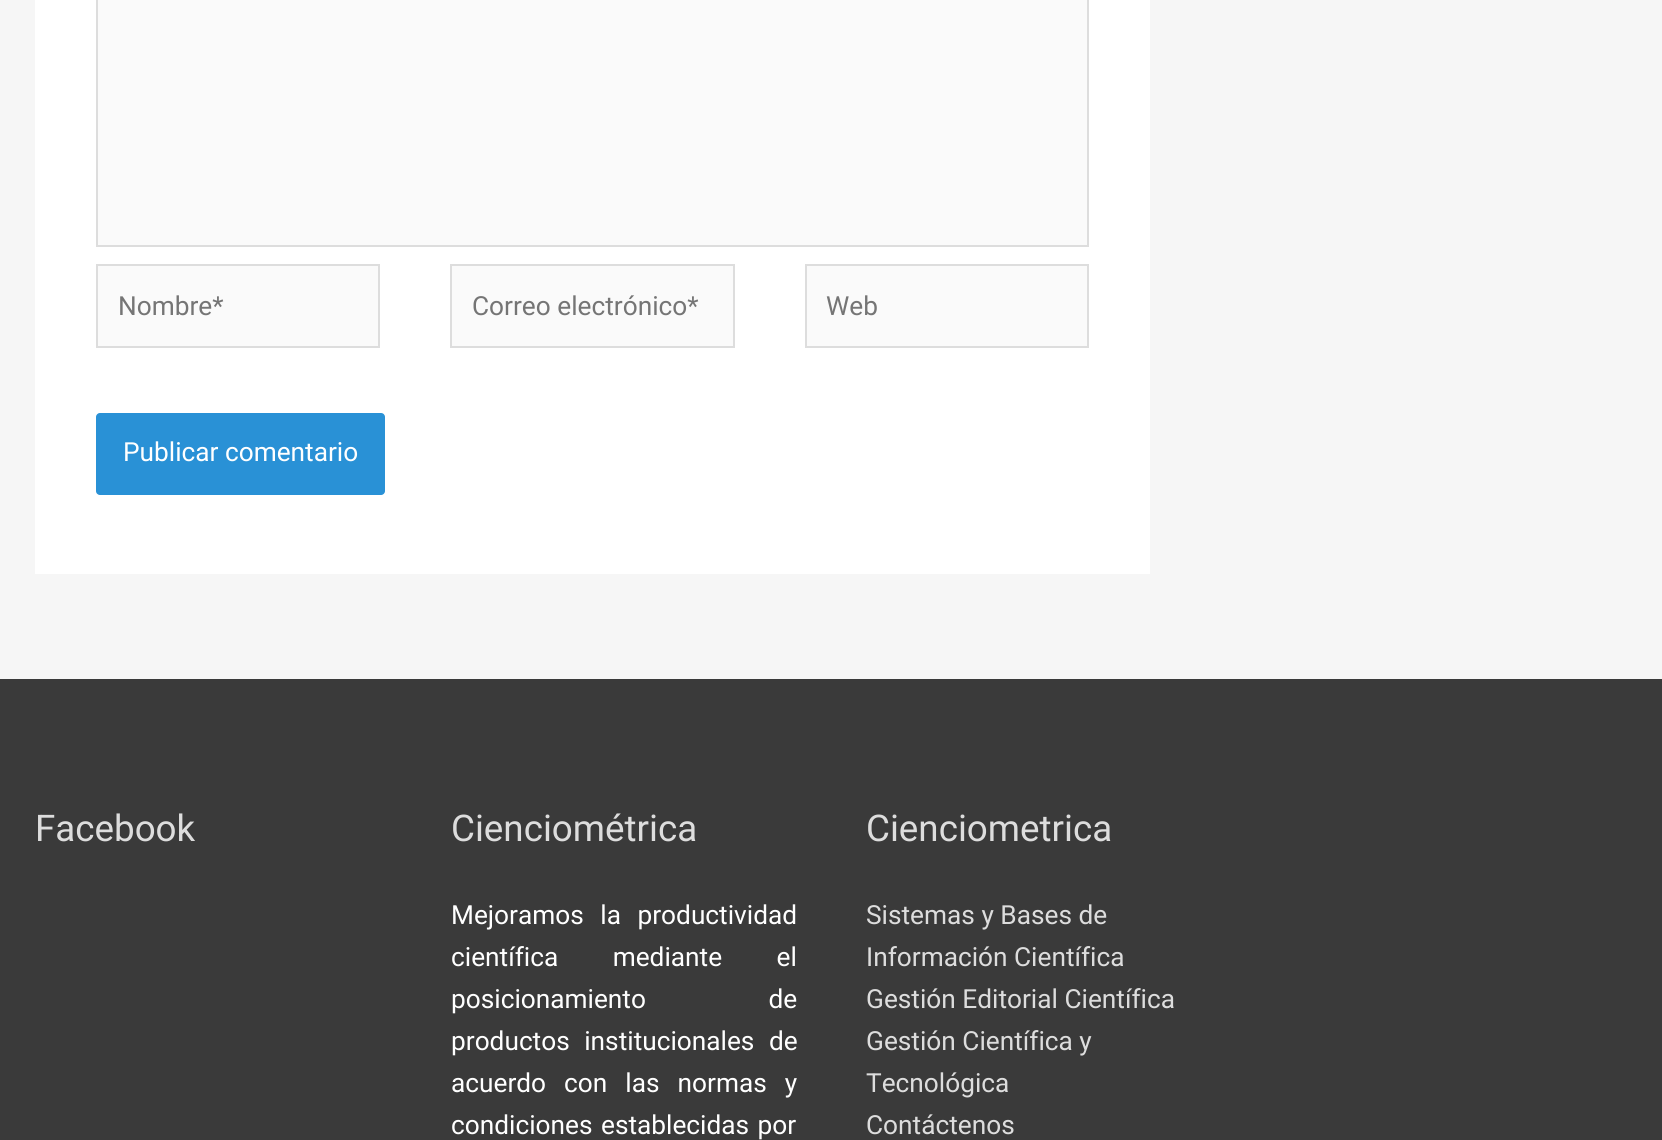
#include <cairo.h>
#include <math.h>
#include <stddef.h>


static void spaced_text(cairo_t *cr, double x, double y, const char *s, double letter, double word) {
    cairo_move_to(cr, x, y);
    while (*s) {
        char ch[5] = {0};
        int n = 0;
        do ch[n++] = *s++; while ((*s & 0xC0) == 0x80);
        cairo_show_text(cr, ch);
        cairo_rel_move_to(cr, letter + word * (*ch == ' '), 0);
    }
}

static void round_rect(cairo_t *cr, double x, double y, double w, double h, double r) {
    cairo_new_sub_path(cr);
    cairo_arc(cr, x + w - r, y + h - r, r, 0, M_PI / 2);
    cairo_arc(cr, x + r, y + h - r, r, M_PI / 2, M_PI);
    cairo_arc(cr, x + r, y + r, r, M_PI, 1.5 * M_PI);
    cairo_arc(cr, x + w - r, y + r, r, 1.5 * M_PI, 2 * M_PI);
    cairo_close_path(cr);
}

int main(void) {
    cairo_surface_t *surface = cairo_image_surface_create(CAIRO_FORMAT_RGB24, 1662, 1140);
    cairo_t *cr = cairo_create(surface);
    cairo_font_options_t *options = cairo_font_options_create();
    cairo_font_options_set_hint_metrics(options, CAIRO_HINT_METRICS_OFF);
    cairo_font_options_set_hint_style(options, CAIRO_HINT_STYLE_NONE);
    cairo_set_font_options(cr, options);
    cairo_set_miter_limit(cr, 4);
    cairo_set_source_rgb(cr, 0.961, 0.961, 0.961);
    cairo_paint(cr);
    cairo_set_source_rgb(cr, 1, 1, 1);
    cairo_rectangle(cr, 35, 0, 1115, 574);
    cairo_fill(cr);
    cairo_set_source_rgb(cr, 0.98, 0.98, 0.98);
    cairo_rectangle(cr, 97, -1, 991, 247);
    cairo_fill_preserve(cr);
    cairo_set_source_rgb(cr, 0.867, 0.867, 0.867);
    cairo_stroke(cr);
    cairo_set_source_rgb(cr, 0.98, 0.98, 0.98);
    cairo_rectangle(cr, 97, 265, 282, 82);
    cairo_fill_preserve(cr);
    cairo_set_source_rgb(cr, 0.867, 0.867, 0.867);
    cairo_stroke(cr);
    cairo_select_font_face(cr, "Roboto", CAIRO_FONT_SLANT_NORMAL, CAIRO_FONT_WEIGHT_NORMAL);
    cairo_set_font_size(cr, 26.25);
    cairo_set_source_rgb(cr, 0.459, 0.459, 0.459);
    cairo_move_to(cr, 118, 315);
    cairo_show_text(cr, "Nombre*");
    cairo_set_source_rgb(cr, 0.98, 0.98, 0.98);
    cairo_rectangle(cr, 451, 265, 283, 82);
    cairo_fill_preserve(cr);
    cairo_set_source_rgb(cr, 0.867, 0.867, 0.867);
    cairo_stroke(cr);
    cairo_set_source_rgb(cr, 0.459, 0.459, 0.459);
    cairo_move_to(cr, 472, 315);
    cairo_show_text(cr, "Correo electrónico*");
    cairo_set_source_rgb(cr, 0.98, 0.98, 0.98);
    cairo_rectangle(cr, 806, 265, 282, 82);
    cairo_fill_preserve(cr);
    cairo_set_source_rgb(cr, 0.867, 0.867, 0.867);
    cairo_stroke(cr);
    cairo_set_source_rgb(cr, 0.459, 0.459, 0.459);
    cairo_move_to(cr, 826, 315);
    cairo_show_text(cr, "Web");
    cairo_set_source_rgb(cr, 0.161, 0.569, 0.839);
    round_rect(cr, 96, 413, 289, 82, 4);
    cairo_fill(cr);
    cairo_set_source_rgb(cr, 1, 1, 1);
    cairo_move_to(cr, 123, 461);
    cairo_show_text(cr, "Publicar comentario");
    cairo_set_source_rgb(cr, 0.227, 0.227, 0.227);
    cairo_rectangle(cr, 0, 679, 1662, 461);
    cairo_fill(cr);
    cairo_set_font_size(cr, 36.75);
    cairo_set_source_rgb(cr, 0.867, 0.867, 0.867);
    cairo_move_to(cr, 35, 841);
    cairo_show_text(cr, "Facebook");
    cairo_move_to(cr, 451, 841);
    cairo_show_text(cr, "Cienciométrica");
    cairo_set_font_size(cr, 26.25);
    cairo_set_source_rgb(cr, 1, 1, 1);
    spaced_text(cr, 451, 924, "Mejoramos la productividad", 0, 10);
    spaced_text(cr, 451, 966, "científica mediante el", 0, 48);
    spaced_text(cr, 451, 1008, "posicionamiento de", 0, 116);
    spaced_text(cr, 451, 1050, "productos institucionales de", 0, 8);
    spaced_text(cr, 451, 1092, "acuerdo con las normas y", 0, 11.5);
    spaced_text(cr, 451, 1134, "condiciones establecidas por", 0, 2);
    cairo_set_font_size(cr, 36.75);
    cairo_set_source_rgb(cr, 0.867, 0.867, 0.867);
    cairo_move_to(cr, 866, 841);
    cairo_show_text(cr, "Cienciometrica");
    cairo_set_font_size(cr, 26.25);
    cairo_move_to(cr, 866, 924);
    cairo_show_text(cr, "Sistemas y Bases de");
    cairo_move_to(cr, 866, 966);
    cairo_show_text(cr, "Información Científica");
    cairo_move_to(cr, 866, 1008);
    cairo_show_text(cr, "Gestión Editorial Científica");
    cairo_move_to(cr, 866, 1050);
    cairo_show_text(cr, "Gestión Científica y");
    cairo_move_to(cr, 866, 1092);
    cairo_show_text(cr, "Tecnológica");
    cairo_move_to(cr, 866, 1134);
    cairo_show_text(cr, "Contáctenos");
    cairo_surface_write_to_png(surface, "page.png");
    cairo_font_options_destroy(options);
    cairo_destroy(cr);
    cairo_surface_destroy(surface);
    return 0;
}
